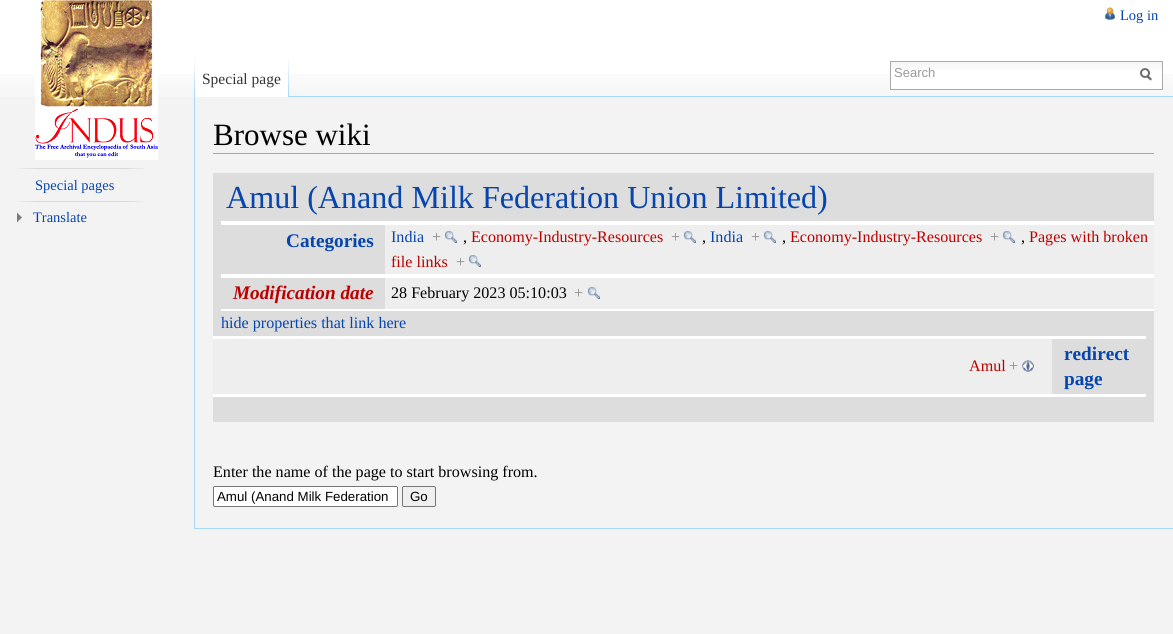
#include <cairo.h>
#include <math.h>
#include <stddef.h>


static void round_rect(cairo_t *cr, double x, double y, double w, double h, double r) {
    cairo_new_sub_path(cr);
    cairo_arc(cr, x + w - r, y + h - r, r, 0, M_PI / 2);
    cairo_arc(cr, x + r, y + h - r, r, M_PI / 2, M_PI);
    cairo_arc(cr, x + r, y + r, r, M_PI, 1.5 * M_PI);
    cairo_arc(cr, x + w - r, y + r, r, 1.5 * M_PI, 2 * M_PI);
    cairo_close_path(cr);
}

static void picture(cairo_t *cr, const char *path, double x, double y, double w, double h) {
    cairo_surface_t *image = cairo_image_surface_create_from_png(path);
    cairo_save(cr);
    cairo_set_source_surface(cr, image, x, y);
    cairo_rectangle(cr, x, y, w, h);
    cairo_fill(cr);
    cairo_restore(cr);
    cairo_surface_destroy(image);
}

int main(void) {
    cairo_surface_t *surface = cairo_image_surface_create(CAIRO_FORMAT_RGB24, 1173, 634);
    cairo_t *cr = cairo_create(surface);
    cairo_font_options_t *options = cairo_font_options_create();
    cairo_font_options_set_hint_metrics(options, CAIRO_HINT_METRICS_OFF);
    cairo_font_options_set_hint_style(options, CAIRO_HINT_STYLE_NONE);
    cairo_set_font_options(cr, options);
    cairo_set_miter_limit(cr, 4);
    cairo_set_source_rgb(cr, 0.953, 0.953, 0.953);
    cairo_paint(cr);
    cairo_set_source_rgb(cr, 1, 1, 1);
    cairo_rectangle(cr, 0, 0, 1173, 74);
    cairo_fill(cr);
    picture(cr, "img1.png", 0, 74, 1173, 23);
    picture(cr, "img2.png", 1105, 7, 10, 13);
    cairo_select_font_face(cr, "Liberation Serif", CAIRO_FONT_SLANT_NORMAL, CAIRO_FONT_WEIGHT_NORMAL);
    cairo_set_font_size(cr, 14.5);
    cairo_set_source_rgb(cr, 0.024, 0.271, 0.678);
    cairo_move_to(cr, 1120, 20);
    cairo_show_text(cr, "Log in");
    picture(cr, "img3.png", 194, 57, 1, 39);
    cairo_set_source_rgb(cr, 0.655, 0.843, 0.976);
    cairo_rectangle(cr, 194, 96, 979, 1);
    cairo_fill(cr);
    cairo_set_source_rgb(cr, 1, 1, 1);
    cairo_rectangle(cr, 195, 74, 94, 23);
    cairo_fill(cr);
    picture(cr, "img4.png", 288, 57, 1, 40);
    cairo_set_font_size(cr, 15.5);
    cairo_set_source_rgb(cr, 0.2, 0.2, 0.2);
    cairo_move_to(cr, 202, 84);
    cairo_show_text(cr, "Special page");
    cairo_set_source_rgb(cr, 1, 1, 1);
    cairo_rectangle(cr, 891, 74, 271, 15);
    cairo_fill(cr);
    picture(cr, "img5.png", 891, 62, 271, 8);
    cairo_rectangle(cr, 890.5, 61.5, 272, 28);
    cairo_set_source_rgb(cr, 0.667, 0.667, 0.667);
    cairo_set_line_width(cr, 1);
    cairo_stroke(cr);
    cairo_select_font_face(cr, "Liberation Sans", CAIRO_FONT_SLANT_NORMAL, CAIRO_FONT_WEIGHT_NORMAL);
    cairo_set_font_size(cr, 13);
    cairo_set_source_rgb(cr, 0.6, 0.6, 0.6);
    cairo_move_to(cr, 894, 77);
    cairo_show_text(cr, "Search");
    picture(cr, "img6.png", 1140, 68, 12, 13);
    picture(cr, "img7.png", 35, 0, 123, 160);
    picture(cr, "img8.png", 18, 168, 127, 1);
    cairo_select_font_face(cr, "Liberation Serif", CAIRO_FONT_SLANT_NORMAL, CAIRO_FONT_WEIGHT_NORMAL);
    cairo_set_font_size(cr, 14.5);
    cairo_set_source_rgb(cr, 0.024, 0.271, 0.678);
    cairo_move_to(cr, 35, 190);
    cairo_show_text(cr, "Special pages");
    picture(cr, "img8.png", 18, 201, 127, 1);
    picture(cr, "img9.png", 17, 212, 5, 11);
    cairo_move_to(cr, 33, 222);
    cairo_show_text(cr, "Translate");
    cairo_set_source_rgb(cr, 0.655, 0.843, 0.976);
    cairo_rectangle(cr, 194, 97, 1, 431);
    cairo_fill(cr);
    cairo_set_source_rgb(cr, 0.667, 0.667, 0.667);
    cairo_rectangle(cr, 213, 153, 941, 1);
    cairo_fill(cr);
    cairo_set_font_size(cr, 31);
    cairo_set_source_rgb(cr, 0, 0, 0);
    cairo_move_to(cr, 213, 145);
    cairo_show_text(cr, "Browse wiki");
    cairo_set_source_rgb(cr, 0.867, 0.867, 0.867);
    cairo_rectangle(cr, 213, 173, 8, 163);
    cairo_fill(cr);
    cairo_rectangle(cr, 221, 173, 933, 48);
    cairo_fill(cr);
    cairo_set_source_rgb(cr, 1, 1, 1);
    cairo_rectangle(cr, 221, 221, 933, 2);
    cairo_fill(cr);
    cairo_set_font_size(cr, 32.1);
    cairo_set_source_rgb(cr, 0.024, 0.271, 0.678);
    cairo_move_to(cr, 226, 208);
    cairo_show_text(cr, "Amul (Anand Milk Federation Union Limited)");
    cairo_set_source_rgb(cr, 0.933, 0.933, 0.933);
    cairo_rectangle(cr, 385, 225, 769, 49);
    cairo_fill(cr);
    cairo_set_source_rgb(cr, 0.867, 0.867, 0.867);
    cairo_rectangle(cr, 221, 225, 164, 49);
    cairo_fill(cr);
    cairo_set_source_rgb(cr, 1, 1, 1);
    cairo_rectangle(cr, 221, 223, 933, 2);
    cairo_fill(cr);
    cairo_rectangle(cr, 221, 274, 933, 2);
    cairo_fill(cr);
    cairo_select_font_face(cr, "Liberation Serif", CAIRO_FONT_SLANT_NORMAL, CAIRO_FONT_WEIGHT_BOLD);
    cairo_set_font_size(cr, 19.25);
    cairo_set_source_rgb(cr, 0.024, 0.271, 0.678);
    cairo_move_to(cr, 286, 247);
    cairo_show_text(cr, "Categories");
    cairo_select_font_face(cr, "Liberation Serif", CAIRO_FONT_SLANT_NORMAL, CAIRO_FONT_WEIGHT_NORMAL);
    cairo_set_font_size(cr, 16.1);
    cairo_move_to(cr, 391, 242);
    cairo_show_text(cr, "India");
    cairo_set_source_rgb(cr, 0.533, 0.533, 0.533);
    cairo_move_to(cr, 432, 242);
    cairo_show_text(cr, "+");
    picture(cr, "img10.png", 445, 231, 12, 12);
    cairo_set_source_rgb(cr, 0.729, 0, 0);
    cairo_move_to(cr, 471, 242);
    cairo_show_text(cr, "Economy-Industry-Resources");
    cairo_set_source_rgb(cr, 0.533, 0.533, 0.533);
    cairo_move_to(cr, 671, 242);
    cairo_show_text(cr, "+");
    picture(cr, "img10.png", 684, 231, 12, 12);
    cairo_set_source_rgb(cr, 0.024, 0.271, 0.678);
    cairo_move_to(cr, 710, 242);
    cairo_show_text(cr, "India");
    cairo_set_source_rgb(cr, 0.533, 0.533, 0.533);
    cairo_move_to(cr, 751, 242);
    cairo_show_text(cr, "+");
    picture(cr, "img10.png", 764, 231, 12, 12);
    cairo_set_source_rgb(cr, 0.729, 0, 0);
    cairo_move_to(cr, 790, 242);
    cairo_show_text(cr, "Economy-Industry-Resources");
    cairo_set_source_rgb(cr, 0.533, 0.533, 0.533);
    cairo_move_to(cr, 990, 242);
    cairo_show_text(cr, "+");
    picture(cr, "img10.png", 1003, 231, 12, 12);
    cairo_set_source_rgb(cr, 0.729, 0, 0);
    cairo_move_to(cr, 1029, 242);
    cairo_show_text(cr, "Pages with broken");
    cairo_set_source_rgb(cr, 0, 0, 0);
    cairo_move_to(cr, 463, 242);
    cairo_show_text(cr, ",");
    cairo_move_to(cr, 702, 242);
    cairo_show_text(cr, ",");
    cairo_move_to(cr, 782, 242);
    cairo_show_text(cr, ",");
    cairo_move_to(cr, 1021, 242);
    cairo_show_text(cr, ",");
    cairo_set_source_rgb(cr, 0.729, 0, 0);
    cairo_move_to(cr, 391, 267);
    cairo_show_text(cr, "file links");
    cairo_set_source_rgb(cr, 0.533, 0.533, 0.533);
    cairo_move_to(cr, 456, 267);
    cairo_show_text(cr, "+");
    picture(cr, "img10.png", 469, 255, 12, 12);
    cairo_set_source_rgb(cr, 0.933, 0.933, 0.933);
    cairo_rectangle(cr, 385, 278, 769, 31);
    cairo_fill(cr);
    cairo_set_source_rgb(cr, 0.867, 0.867, 0.867);
    cairo_rectangle(cr, 221, 278, 164, 31);
    cairo_fill(cr);
    cairo_set_source_rgb(cr, 1, 1, 1);
    cairo_rectangle(cr, 221, 276, 933, 2);
    cairo_fill(cr);
    cairo_rectangle(cr, 221, 309, 933, 2);
    cairo_fill(cr);
    cairo_select_font_face(cr, "Liberation Serif", CAIRO_FONT_SLANT_ITALIC, CAIRO_FONT_WEIGHT_BOLD);
    cairo_set_font_size(cr, 19.25);
    cairo_set_source_rgb(cr, 0.729, 0, 0);
    cairo_move_to(cr, 233, 299);
    cairo_show_text(cr, "Modification date");
    cairo_select_font_face(cr, "Liberation Serif", CAIRO_FONT_SLANT_NORMAL, CAIRO_FONT_WEIGHT_NORMAL);
    cairo_set_font_size(cr, 16.1);
    cairo_set_source_rgb(cr, 0, 0, 0);
    cairo_move_to(cr, 391, 298);
    cairo_show_text(cr, "28 February 2023 05:10:03");
    cairo_set_source_rgb(cr, 0.533, 0.533, 0.533);
    cairo_move_to(cr, 574, 298);
    cairo_show_text(cr, "+");
    picture(cr, "img10.png", 588, 287, 12, 12);
    cairo_set_source_rgb(cr, 0.867, 0.867, 0.867);
    cairo_rectangle(cr, 221, 311, 933, 25);
    cairo_fill(cr);
    cairo_set_source_rgb(cr, 0.024, 0.271, 0.678);
    cairo_move_to(cr, 221, 328);
    cairo_show_text(cr, "hide properties that link here");
    cairo_set_source_rgb(cr, 0.867, 0.867, 0.867);
    cairo_rectangle(cr, 1146, 336, 8, 61);
    cairo_fill(cr);
    cairo_set_source_rgb(cr, 0.933, 0.933, 0.933);
    cairo_rectangle(cr, 213, 339, 839, 55);
    cairo_fill(cr);
    cairo_set_source_rgb(cr, 1, 1, 1);
    cairo_rectangle(cr, 213, 336, 933, 3);
    cairo_fill(cr);
    cairo_rectangle(cr, 213, 394, 933, 3);
    cairo_fill(cr);
    cairo_set_source_rgb(cr, 0.729, 0, 0);
    cairo_move_to(cr, 969, 371);
    cairo_show_text(cr, "Amul");
    cairo_set_source_rgb(cr, 0.533, 0.533, 0.533);
    cairo_move_to(cr, 1009, 371);
    cairo_show_text(cr, "+");
    picture(cr, "img11.png", 1022, 360, 12, 12);
    cairo_set_source_rgb(cr, 0.867, 0.867, 0.867);
    cairo_rectangle(cr, 1052, 339, 94, 55);
    cairo_fill(cr);
    cairo_select_font_face(cr, "Liberation Serif", CAIRO_FONT_SLANT_NORMAL, CAIRO_FONT_WEIGHT_BOLD);
    cairo_set_font_size(cr, 19.25);
    cairo_set_source_rgb(cr, 0.024, 0.271, 0.678);
    cairo_move_to(cr, 1064, 360);
    cairo_show_text(cr, "redirect");
    cairo_move_to(cr, 1064, 385);
    cairo_show_text(cr, "page");
    cairo_set_source_rgb(cr, 0.867, 0.867, 0.867);
    cairo_rectangle(cr, 213, 397, 941, 25);
    cairo_fill(cr);
    cairo_select_font_face(cr, "Liberation Serif", CAIRO_FONT_SLANT_NORMAL, CAIRO_FONT_WEIGHT_NORMAL);
    cairo_set_font_size(cr, 16.1);
    cairo_set_source_rgb(cr, 0, 0, 0);
    cairo_move_to(cr, 213, 477);
    cairo_show_text(cr, "Enter the name of the page to start browsing from.");
    cairo_set_source_rgb(cr, 1, 1, 1);
    round_rect(cr, 213.5, 486.5, 184, 20, 1.5);
    cairo_fill_preserve(cr);
    cairo_set_source_rgb(cr, 0.463, 0.463, 0.463);
    cairo_stroke(cr);
    cairo_select_font_face(cr, "Liberation Sans", CAIRO_FONT_SLANT_NORMAL, CAIRO_FONT_WEIGHT_NORMAL);
    cairo_set_font_size(cr, 13.3);
    cairo_set_source_rgb(cr, 0, 0, 0);
    cairo_move_to(cr, 217, 501);
    cairo_show_text(cr, "Amul (Anand Milk Federation");
    cairo_set_source_rgb(cr, 0.937, 0.937, 0.937);
    round_rect(cr, 402.5, 486.5, 33, 20, 1.5);
    cairo_fill_preserve(cr);
    cairo_set_source_rgb(cr, 0.463, 0.463, 0.463);
    cairo_stroke(cr);
    cairo_set_source_rgb(cr, 0, 0, 0);
    cairo_move_to(cr, 410, 501);
    cairo_show_text(cr, "Go");
    cairo_set_source_rgb(cr, 0.655, 0.843, 0.976);
    cairo_rectangle(cr, 194, 528, 979, 1);
    cairo_fill(cr);
    cairo_surface_write_to_png(surface, "page.png");
    cairo_font_options_destroy(options);
    cairo_destroy(cr);
    cairo_surface_destroy(surface);
    return 0;
}
